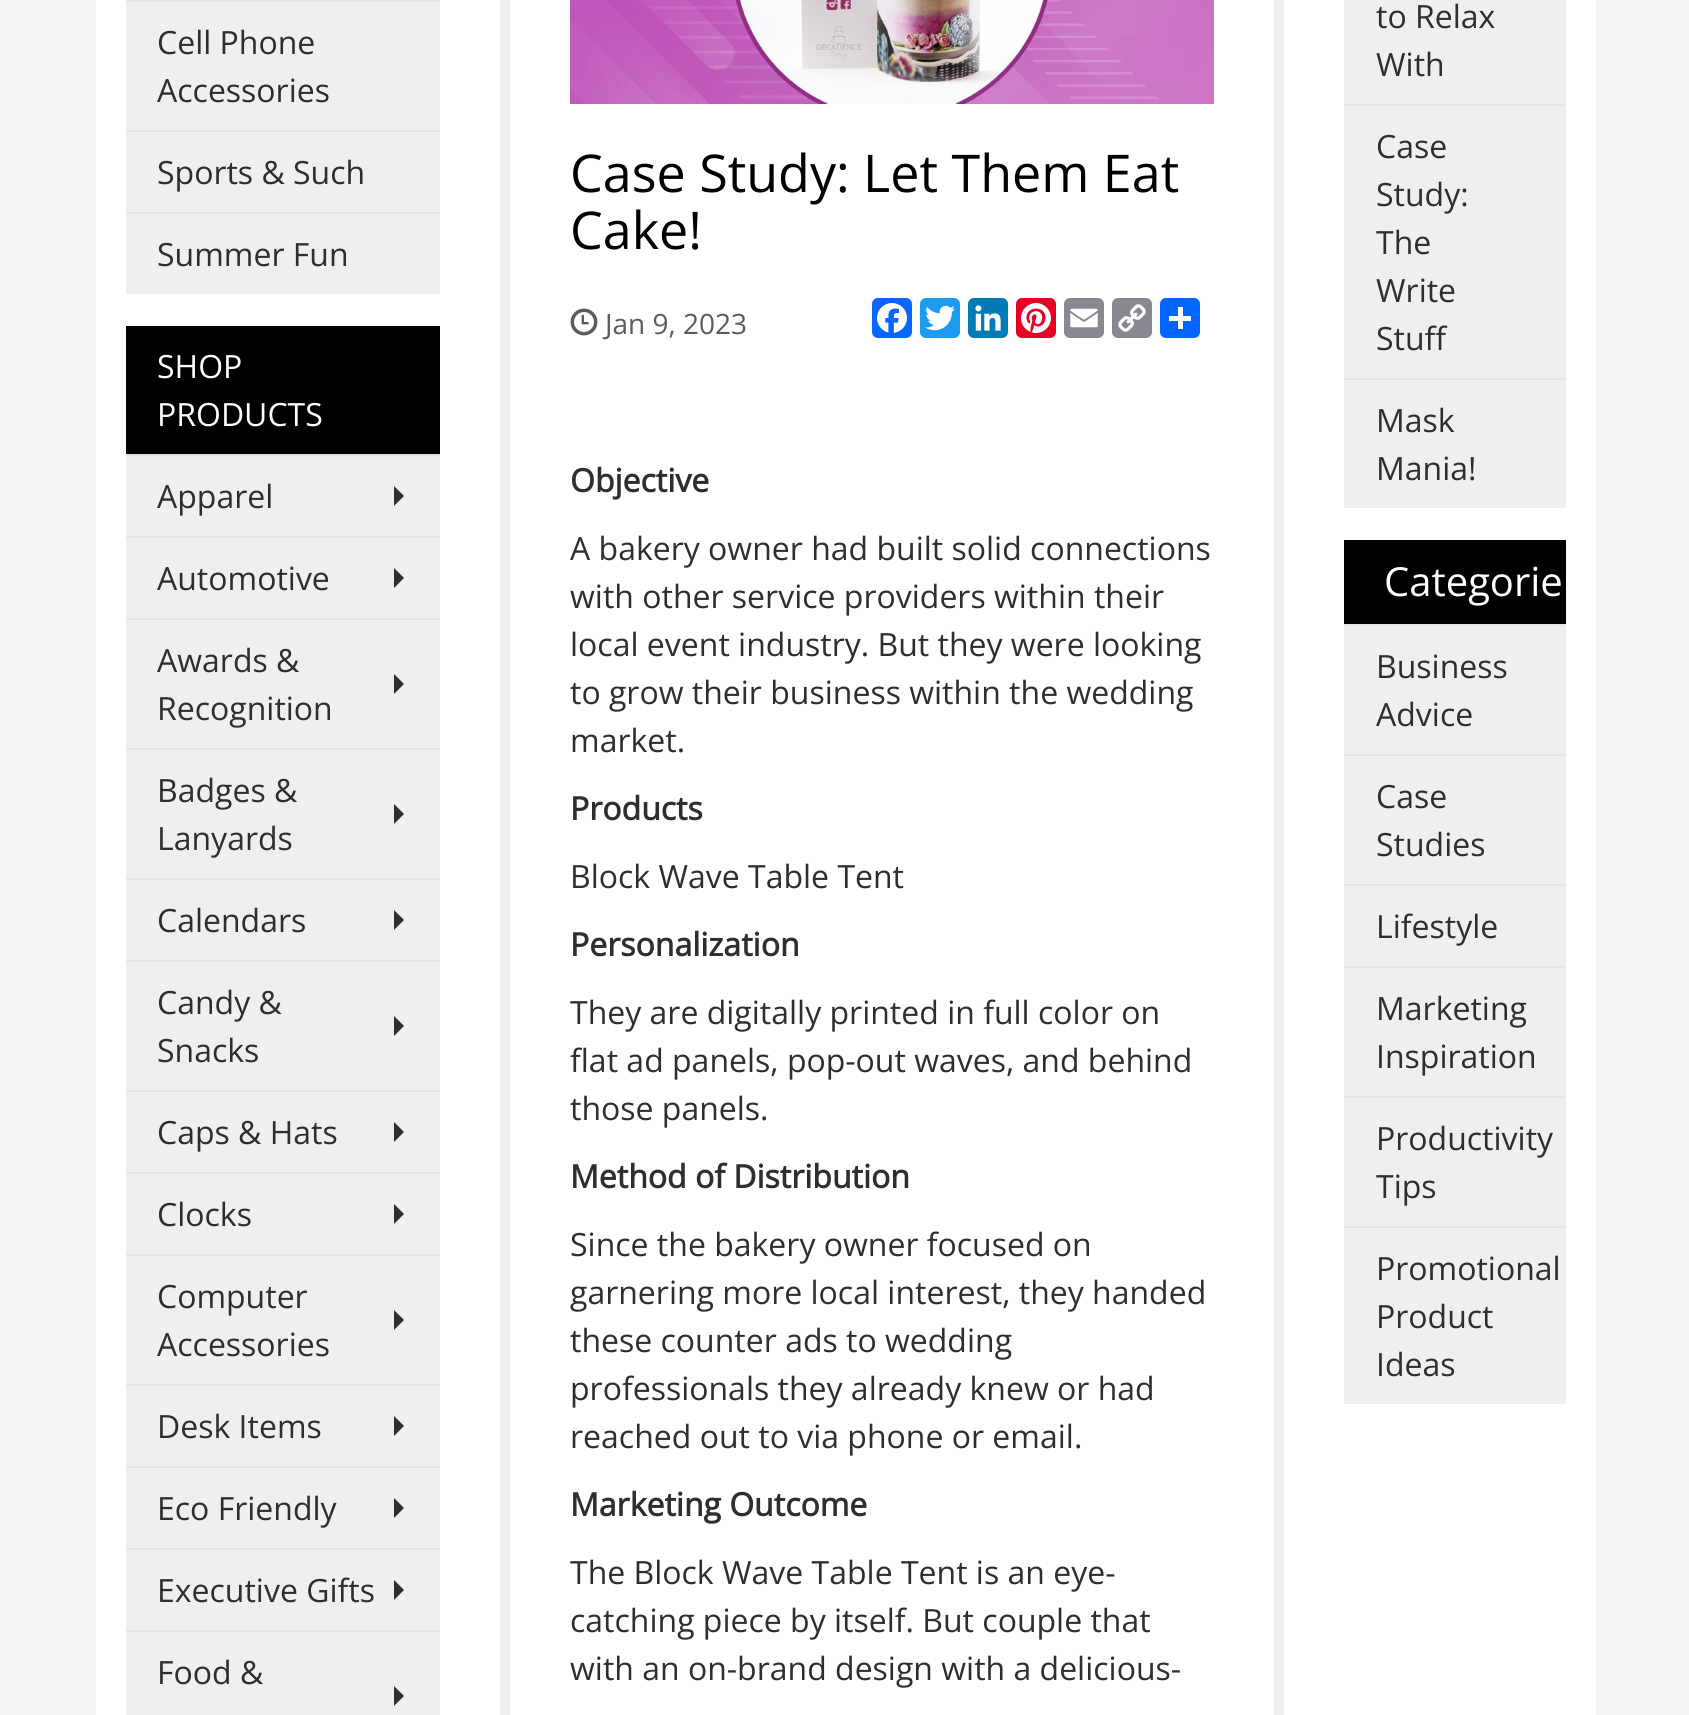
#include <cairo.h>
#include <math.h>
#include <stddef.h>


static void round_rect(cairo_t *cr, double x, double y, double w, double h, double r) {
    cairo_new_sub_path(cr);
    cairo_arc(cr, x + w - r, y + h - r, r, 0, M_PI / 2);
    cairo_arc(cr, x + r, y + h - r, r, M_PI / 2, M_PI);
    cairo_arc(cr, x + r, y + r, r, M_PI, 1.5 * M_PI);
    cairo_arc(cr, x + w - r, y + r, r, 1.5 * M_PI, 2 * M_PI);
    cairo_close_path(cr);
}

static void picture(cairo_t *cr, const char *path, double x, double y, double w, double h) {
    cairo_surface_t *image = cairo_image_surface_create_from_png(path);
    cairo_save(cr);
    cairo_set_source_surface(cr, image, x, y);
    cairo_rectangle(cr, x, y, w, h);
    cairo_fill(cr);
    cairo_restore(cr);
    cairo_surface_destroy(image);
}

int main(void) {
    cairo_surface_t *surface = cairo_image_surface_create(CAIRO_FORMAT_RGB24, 1689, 1715);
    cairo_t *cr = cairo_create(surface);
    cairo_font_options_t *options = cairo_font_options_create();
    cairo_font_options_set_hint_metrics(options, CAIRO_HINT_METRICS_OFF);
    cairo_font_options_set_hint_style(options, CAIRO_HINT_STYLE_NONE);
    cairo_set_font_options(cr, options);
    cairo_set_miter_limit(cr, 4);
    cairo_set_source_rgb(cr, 0.957, 0.957, 0.957);
    cairo_paint(cr);
    cairo_set_source_rgb(cr, 1, 1, 1);
    cairo_rectangle(cr, 96, 0, 1500, 1715);
    cairo_fill(cr);
    cairo_set_source_rgb(cr, 0.937, 0.937, 0.937);
    cairo_rectangle(cr, 126, 2, 314, 128);
    cairo_fill(cr);
    cairo_set_source_rgb(cr, 0.898, 0.898, 0.898);
    cairo_rectangle(cr, 126, 0, 314, 2);
    cairo_fill(cr);
    cairo_select_font_face(cr, "Open Sans", CAIRO_FONT_SLANT_NORMAL, CAIRO_FONT_WEIGHT_NORMAL);
    cairo_set_font_size(cr, 32);
    cairo_set_source_rgb(cr, 0.18, 0.18, 0.18);
    cairo_move_to(cr, 157, 54);
    cairo_show_text(cr, "Cell Phone");
    cairo_move_to(cr, 157, 102);
    cairo_show_text(cr, "Accessories");
    cairo_set_source_rgb(cr, 0.937, 0.937, 0.937);
    cairo_rectangle(cr, 126, 132, 314, 80);
    cairo_fill(cr);
    cairo_set_source_rgb(cr, 0.898, 0.898, 0.898);
    cairo_rectangle(cr, 126, 130, 314, 2);
    cairo_fill(cr);
    cairo_set_source_rgb(cr, 0.18, 0.18, 0.18);
    cairo_move_to(cr, 157, 184);
    cairo_show_text(cr, "Sports & Such");
    cairo_set_source_rgb(cr, 0.937, 0.937, 0.937);
    cairo_rectangle(cr, 126, 214, 314, 80);
    cairo_fill(cr);
    cairo_set_source_rgb(cr, 0.898, 0.898, 0.898);
    cairo_rectangle(cr, 126, 212, 314, 2);
    cairo_fill(cr);
    cairo_set_source_rgb(cr, 0.18, 0.18, 0.18);
    cairo_move_to(cr, 157, 266);
    cairo_show_text(cr, "Summer Fun");
    cairo_set_source_rgb(cr, 0, 0, 0);
    cairo_rectangle(cr, 126, 326, 314, 128);
    cairo_fill(cr);
    cairo_set_source_rgb(cr, 1, 1, 1);
    cairo_move_to(cr, 157, 378);
    cairo_show_text(cr, "SHOP");
    cairo_move_to(cr, 157, 426);
    cairo_show_text(cr, "PRODUCTS");
    cairo_set_source_rgb(cr, 0.937, 0.937, 0.937);
    cairo_rectangle(cr, 126, 456, 314, 80);
    cairo_fill(cr);
    cairo_set_source_rgb(cr, 0.898, 0.898, 0.898);
    cairo_rectangle(cr, 126, 454, 314, 2);
    cairo_fill(cr);
    cairo_set_source_rgb(cr, 0.18, 0.18, 0.18);
    cairo_move_to(cr, 157, 508);
    cairo_show_text(cr, "Apparel");
    cairo_new_path(cr);
    cairo_move_to(cr, 394, 506);
    cairo_line_to(cr, 394, 486);
    cairo_line_to(cr, 404, 496);
    cairo_close_path(cr);
    cairo_fill(cr);
    cairo_set_source_rgb(cr, 0.937, 0.937, 0.937);
    cairo_rectangle(cr, 126, 538, 314, 80);
    cairo_fill(cr);
    cairo_set_source_rgb(cr, 0.898, 0.898, 0.898);
    cairo_rectangle(cr, 126, 536, 314, 2);
    cairo_fill(cr);
    cairo_set_source_rgb(cr, 0.18, 0.18, 0.18);
    cairo_move_to(cr, 157, 590);
    cairo_show_text(cr, "Automotive");
    cairo_new_path(cr);
    cairo_move_to(cr, 394, 588);
    cairo_line_to(cr, 394, 568);
    cairo_line_to(cr, 404, 578);
    cairo_close_path(cr);
    cairo_fill(cr);
    cairo_set_source_rgb(cr, 0.937, 0.937, 0.937);
    cairo_rectangle(cr, 126, 620, 314, 128);
    cairo_fill(cr);
    cairo_set_source_rgb(cr, 0.898, 0.898, 0.898);
    cairo_rectangle(cr, 126, 618, 314, 2);
    cairo_fill(cr);
    cairo_set_source_rgb(cr, 0.18, 0.18, 0.18);
    cairo_move_to(cr, 157, 672);
    cairo_show_text(cr, "Awards &");
    cairo_new_path(cr);
    cairo_move_to(cr, 394, 694);
    cairo_line_to(cr, 394, 674);
    cairo_line_to(cr, 404, 684);
    cairo_close_path(cr);
    cairo_fill(cr);
    cairo_move_to(cr, 157, 720);
    cairo_show_text(cr, "Recognition");
    cairo_set_source_rgb(cr, 0.937, 0.937, 0.937);
    cairo_rectangle(cr, 126, 750, 314, 128);
    cairo_fill(cr);
    cairo_set_source_rgb(cr, 0.898, 0.898, 0.898);
    cairo_rectangle(cr, 126, 748, 314, 2);
    cairo_fill(cr);
    cairo_set_source_rgb(cr, 0.18, 0.18, 0.18);
    cairo_move_to(cr, 157, 802);
    cairo_show_text(cr, "Badges &");
    cairo_new_path(cr);
    cairo_move_to(cr, 394, 824);
    cairo_line_to(cr, 394, 804);
    cairo_line_to(cr, 404, 814);
    cairo_close_path(cr);
    cairo_fill(cr);
    cairo_move_to(cr, 157, 850);
    cairo_show_text(cr, "Lanyards");
    cairo_set_source_rgb(cr, 0.937, 0.937, 0.937);
    cairo_rectangle(cr, 126, 880, 314, 80);
    cairo_fill(cr);
    cairo_set_source_rgb(cr, 0.898, 0.898, 0.898);
    cairo_rectangle(cr, 126, 878, 314, 2);
    cairo_fill(cr);
    cairo_set_source_rgb(cr, 0.18, 0.18, 0.18);
    cairo_move_to(cr, 157, 932);
    cairo_show_text(cr, "Calendars");
    cairo_new_path(cr);
    cairo_move_to(cr, 394, 930);
    cairo_line_to(cr, 394, 910);
    cairo_line_to(cr, 404, 920);
    cairo_close_path(cr);
    cairo_fill(cr);
    cairo_set_source_rgb(cr, 0.937, 0.937, 0.937);
    cairo_rectangle(cr, 126, 962, 314, 128);
    cairo_fill(cr);
    cairo_set_source_rgb(cr, 0.898, 0.898, 0.898);
    cairo_rectangle(cr, 126, 960, 314, 2);
    cairo_fill(cr);
    cairo_set_source_rgb(cr, 0.18, 0.18, 0.18);
    cairo_move_to(cr, 157, 1014);
    cairo_show_text(cr, "Candy &");
    cairo_new_path(cr);
    cairo_move_to(cr, 394, 1036);
    cairo_line_to(cr, 394, 1016);
    cairo_line_to(cr, 404, 1026);
    cairo_close_path(cr);
    cairo_fill(cr);
    cairo_move_to(cr, 157, 1062);
    cairo_show_text(cr, "Snacks");
    cairo_set_source_rgb(cr, 0.937, 0.937, 0.937);
    cairo_rectangle(cr, 126, 1092, 314, 80);
    cairo_fill(cr);
    cairo_set_source_rgb(cr, 0.898, 0.898, 0.898);
    cairo_rectangle(cr, 126, 1090, 314, 2);
    cairo_fill(cr);
    cairo_set_source_rgb(cr, 0.18, 0.18, 0.18);
    cairo_move_to(cr, 157, 1144);
    cairo_show_text(cr, "Caps & Hats");
    cairo_new_path(cr);
    cairo_move_to(cr, 394, 1142);
    cairo_line_to(cr, 394, 1122);
    cairo_line_to(cr, 404, 1132);
    cairo_close_path(cr);
    cairo_fill(cr);
    cairo_set_source_rgb(cr, 0.937, 0.937, 0.937);
    cairo_rectangle(cr, 126, 1174, 314, 80);
    cairo_fill(cr);
    cairo_set_source_rgb(cr, 0.898, 0.898, 0.898);
    cairo_rectangle(cr, 126, 1172, 314, 2);
    cairo_fill(cr);
    cairo_set_source_rgb(cr, 0.18, 0.18, 0.18);
    cairo_move_to(cr, 157, 1226);
    cairo_show_text(cr, "Clocks");
    cairo_new_path(cr);
    cairo_move_to(cr, 394, 1224);
    cairo_line_to(cr, 394, 1204);
    cairo_line_to(cr, 404, 1214);
    cairo_close_path(cr);
    cairo_fill(cr);
    cairo_set_source_rgb(cr, 0.937, 0.937, 0.937);
    cairo_rectangle(cr, 126, 1256, 314, 128);
    cairo_fill(cr);
    cairo_set_source_rgb(cr, 0.898, 0.898, 0.898);
    cairo_rectangle(cr, 126, 1254, 314, 2);
    cairo_fill(cr);
    cairo_set_source_rgb(cr, 0.18, 0.18, 0.18);
    cairo_move_to(cr, 157, 1308);
    cairo_show_text(cr, "Computer");
    cairo_new_path(cr);
    cairo_move_to(cr, 394, 1330);
    cairo_line_to(cr, 394, 1310);
    cairo_line_to(cr, 404, 1320);
    cairo_close_path(cr);
    cairo_fill(cr);
    cairo_move_to(cr, 157, 1356);
    cairo_show_text(cr, "Accessories");
    cairo_set_source_rgb(cr, 0.937, 0.937, 0.937);
    cairo_rectangle(cr, 126, 1386, 314, 80);
    cairo_fill(cr);
    cairo_set_source_rgb(cr, 0.898, 0.898, 0.898);
    cairo_rectangle(cr, 126, 1384, 314, 2);
    cairo_fill(cr);
    cairo_set_source_rgb(cr, 0.18, 0.18, 0.18);
    cairo_move_to(cr, 157, 1438);
    cairo_show_text(cr, "Desk Items");
    cairo_new_path(cr);
    cairo_move_to(cr, 394, 1436);
    cairo_line_to(cr, 394, 1416);
    cairo_line_to(cr, 404, 1426);
    cairo_close_path(cr);
    cairo_fill(cr);
    cairo_set_source_rgb(cr, 0.937, 0.937, 0.937);
    cairo_rectangle(cr, 126, 1468, 314, 80);
    cairo_fill(cr);
    cairo_set_source_rgb(cr, 0.898, 0.898, 0.898);
    cairo_rectangle(cr, 126, 1466, 314, 2);
    cairo_fill(cr);
    cairo_set_source_rgb(cr, 0.18, 0.18, 0.18);
    cairo_move_to(cr, 157, 1520);
    cairo_show_text(cr, "Eco Friendly");
    cairo_new_path(cr);
    cairo_move_to(cr, 394, 1518);
    cairo_line_to(cr, 394, 1498);
    cairo_line_to(cr, 404, 1508);
    cairo_close_path(cr);
    cairo_fill(cr);
    cairo_set_source_rgb(cr, 0.937, 0.937, 0.937);
    cairo_rectangle(cr, 126, 1550, 314, 80);
    cairo_fill(cr);
    cairo_set_source_rgb(cr, 0.898, 0.898, 0.898);
    cairo_rectangle(cr, 126, 1548, 314, 2);
    cairo_fill(cr);
    cairo_set_source_rgb(cr, 0.18, 0.18, 0.18);
    cairo_move_to(cr, 157, 1602);
    cairo_show_text(cr, "Executive Gifts");
    cairo_new_path(cr);
    cairo_move_to(cr, 394, 1600);
    cairo_line_to(cr, 394, 1580);
    cairo_line_to(cr, 404, 1590);
    cairo_close_path(cr);
    cairo_fill(cr);
    cairo_set_source_rgb(cr, 0.937, 0.937, 0.937);
    cairo_rectangle(cr, 126, 1632, 314, 83);
    cairo_fill(cr);
    cairo_set_source_rgb(cr, 0.898, 0.898, 0.898);
    cairo_rectangle(cr, 126, 1630, 314, 2);
    cairo_fill(cr);
    cairo_set_source_rgb(cr, 0.18, 0.18, 0.18);
    cairo_move_to(cr, 157, 1684);
    cairo_show_text(cr, "Food &");
    cairo_new_path(cr);
    cairo_move_to(cr, 394, 1706);
    cairo_line_to(cr, 394, 1686);
    cairo_line_to(cr, 404, 1696);
    cairo_close_path(cr);
    cairo_fill(cr);
    cairo_rectangle(cr, 505, -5, 774, 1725);
    cairo_set_source_rgb(cr, 0.937, 0.937, 0.937);
    cairo_set_line_width(cr, 10);
    cairo_stroke(cr);
    picture(cr, "img1.png", 570, 0, 644, 104);
    cairo_set_font_size(cr, 52);
    cairo_set_source_rgb(cr, 0, 0, 0);
    cairo_move_to(cr, 570, 192);
    cairo_show_text(cr, "Case Study: Let Them Eat");
    cairo_move_to(cr, 570, 249);
    cairo_show_text(cr, "Cake!");
    picture(cr, "img2.png", 570, 308, 28, 28);
    cairo_set_font_size(cr, 28);
    cairo_set_source_rgb(cr, 0.357, 0.357, 0.357);
    cairo_move_to(cr, 605, 334);
    cairo_show_text(cr, "Jan 9, 2023");
    cairo_set_source_rgb(cr, 0.031, 0.4, 1);
    round_rect(cr, 872, 298, 40, 40, 6);
    cairo_fill(cr);
    picture(cr, "img3.png", 877, 303, 30, 30);
    cairo_set_source_rgb(cr, 0.114, 0.608, 0.941);
    round_rect(cr, 920, 298, 40, 40, 6);
    cairo_fill(cr);
    picture(cr, "img4.png", 925, 305, 30, 26);
    cairo_set_source_rgb(cr, 0, 0.482, 0.71);
    round_rect(cr, 968, 298, 40, 40, 6);
    cairo_fill(cr);
    picture(cr, "img5.png", 975, 305, 26, 26);
    cairo_set_source_rgb(cr, 0.902, 0, 0.137);
    round_rect(cr, 1016, 298, 40, 40, 6);
    cairo_fill(cr);
    picture(cr, "img6.png", 1021, 303, 30, 30);
    cairo_set_source_rgb(cr, 0.533, 0.537, 0.565);
    round_rect(cr, 1064, 298, 40, 40, 6);
    cairo_fill(cr);
    picture(cr, "img7.png", 1070, 308, 28, 20);
    round_rect(cr, 1112, 298, 40, 40, 6);
    cairo_fill(cr);
    picture(cr, "img8.png", 1118, 304, 28, 28);
    cairo_set_source_rgb(cr, 0.004, 0.4, 1);
    round_rect(cr, 1160, 298, 40, 40, 6);
    cairo_fill(cr);
    cairo_set_source_rgb(cr, 1, 1, 1);
    cairo_rectangle(cr, 1178, 307, 5, 22);
    cairo_fill(cr);
    cairo_rectangle(cr, 1169, 316, 22, 5);
    cairo_fill(cr);
    cairo_select_font_face(cr, "Open Sans", CAIRO_FONT_SLANT_NORMAL, CAIRO_FONT_WEIGHT_BOLD);
    cairo_set_font_size(cr, 32);
    cairo_set_source_rgb(cr, 0.18, 0.18, 0.18);
    cairo_move_to(cr, 570, 492);
    cairo_show_text(cr, "Objective");
    cairo_select_font_face(cr, "Open Sans", CAIRO_FONT_SLANT_NORMAL, CAIRO_FONT_WEIGHT_NORMAL);
    cairo_move_to(cr, 570, 560);
    cairo_show_text(cr, "A bakery owner had built solid connections");
    cairo_move_to(cr, 570, 608);
    cairo_show_text(cr, "with other service providers within their");
    cairo_move_to(cr, 570, 656);
    cairo_show_text(cr, "local event industry. But they were looking");
    cairo_move_to(cr, 570, 704);
    cairo_show_text(cr, "to grow their business within the wedding");
    cairo_move_to(cr, 570, 752);
    cairo_show_text(cr, "market.");
    cairo_select_font_face(cr, "Open Sans", CAIRO_FONT_SLANT_NORMAL, CAIRO_FONT_WEIGHT_BOLD);
    cairo_move_to(cr, 570, 820);
    cairo_show_text(cr, "Products");
    cairo_select_font_face(cr, "Open Sans", CAIRO_FONT_SLANT_NORMAL, CAIRO_FONT_WEIGHT_NORMAL);
    cairo_move_to(cr, 570, 888);
    cairo_show_text(cr, "Block Wave Table Tent");
    cairo_select_font_face(cr, "Open Sans", CAIRO_FONT_SLANT_NORMAL, CAIRO_FONT_WEIGHT_BOLD);
    cairo_move_to(cr, 570, 956);
    cairo_show_text(cr, "Personalization");
    cairo_select_font_face(cr, "Open Sans", CAIRO_FONT_SLANT_NORMAL, CAIRO_FONT_WEIGHT_NORMAL);
    cairo_move_to(cr, 570, 1024);
    cairo_show_text(cr, "They are digitally printed in full color on");
    cairo_move_to(cr, 570, 1072);
    cairo_show_text(cr, "flat ad panels, pop-out waves, and behind");
    cairo_move_to(cr, 570, 1120);
    cairo_show_text(cr, "those panels.");
    cairo_select_font_face(cr, "Open Sans", CAIRO_FONT_SLANT_NORMAL, CAIRO_FONT_WEIGHT_BOLD);
    cairo_move_to(cr, 570, 1188);
    cairo_show_text(cr, "Method of Distribution");
    cairo_select_font_face(cr, "Open Sans", CAIRO_FONT_SLANT_NORMAL, CAIRO_FONT_WEIGHT_NORMAL);
    cairo_move_to(cr, 570, 1256);
    cairo_show_text(cr, "Since the bakery owner focused on");
    cairo_move_to(cr, 570, 1304);
    cairo_show_text(cr, "garnering more local interest, they handed");
    cairo_move_to(cr, 570, 1352);
    cairo_show_text(cr, "these counter ads to wedding");
    cairo_move_to(cr, 570, 1400);
    cairo_show_text(cr, "professionals they already knew or had");
    cairo_move_to(cr, 570, 1448);
    cairo_show_text(cr, "reached out to via phone or email.");
    cairo_select_font_face(cr, "Open Sans", CAIRO_FONT_SLANT_NORMAL, CAIRO_FONT_WEIGHT_BOLD);
    cairo_move_to(cr, 570, 1516);
    cairo_show_text(cr, "Marketing Outcome");
    cairo_select_font_face(cr, "Open Sans", CAIRO_FONT_SLANT_NORMAL, CAIRO_FONT_WEIGHT_NORMAL);
    cairo_move_to(cr, 570, 1584);
    cairo_show_text(cr, "The Block Wave Table Tent is an eye-");
    cairo_move_to(cr, 570, 1632);
    cairo_show_text(cr, "catching piece by itself. But couple that");
    cairo_move_to(cr, 570, 1680);
    cairo_show_text(cr, "with an on-brand design with a delicious-");
    cairo_set_source_rgb(cr, 0.937, 0.937, 0.937);
    cairo_rectangle(cr, 1344, 0, 222, 104);
    cairo_fill(cr);
    cairo_set_source_rgb(cr, 0.18, 0.18, 0.18);
    cairo_move_to(cr, 1376, 28);
    cairo_show_text(cr, "to Relax");
    cairo_move_to(cr, 1376, 76);
    cairo_show_text(cr, "With");
    cairo_set_source_rgb(cr, 0.937, 0.937, 0.937);
    cairo_rectangle(cr, 1344, 106, 222, 272);
    cairo_fill(cr);
    cairo_set_source_rgb(cr, 0.898, 0.898, 0.898);
    cairo_rectangle(cr, 1344, 104, 222, 2);
    cairo_fill(cr);
    cairo_set_source_rgb(cr, 0.18, 0.18, 0.18);
    cairo_move_to(cr, 1376, 158);
    cairo_show_text(cr, "Case");
    cairo_move_to(cr, 1376, 206);
    cairo_show_text(cr, "Study:");
    cairo_move_to(cr, 1376, 254);
    cairo_show_text(cr, "The");
    cairo_move_to(cr, 1376, 302);
    cairo_show_text(cr, "Write");
    cairo_move_to(cr, 1376, 350);
    cairo_show_text(cr, "Stuff");
    cairo_set_source_rgb(cr, 0.937, 0.937, 0.937);
    cairo_rectangle(cr, 1344, 380, 222, 128);
    cairo_fill(cr);
    cairo_set_source_rgb(cr, 0.898, 0.898, 0.898);
    cairo_rectangle(cr, 1344, 378, 222, 2);
    cairo_fill(cr);
    cairo_set_source_rgb(cr, 0.18, 0.18, 0.18);
    cairo_move_to(cr, 1376, 432);
    cairo_show_text(cr, "Mask");
    cairo_move_to(cr, 1376, 480);
    cairo_show_text(cr, "Mania!");
    cairo_set_source_rgb(cr, 0, 0, 0);
    cairo_rectangle(cr, 1344, 540, 222, 84);
    cairo_fill(cr);
    cairo_set_font_size(cr, 40);
    cairo_set_source_rgb(cr, 1, 1, 1);
    cairo_move_to(cr, 1384, 596);
    cairo_show_text(cr, "Categorie");
    cairo_set_source_rgb(cr, 0.937, 0.937, 0.937);
    cairo_rectangle(cr, 1344, 626, 222, 128);
    cairo_fill(cr);
    cairo_set_source_rgb(cr, 0.898, 0.898, 0.898);
    cairo_rectangle(cr, 1344, 624, 222, 2);
    cairo_fill(cr);
    cairo_set_font_size(cr, 32);
    cairo_set_source_rgb(cr, 0.18, 0.18, 0.18);
    cairo_move_to(cr, 1376, 678);
    cairo_show_text(cr, "Business");
    cairo_move_to(cr, 1376, 726);
    cairo_show_text(cr, "Advice");
    cairo_set_source_rgb(cr, 0.937, 0.937, 0.937);
    cairo_rectangle(cr, 1344, 756, 222, 128);
    cairo_fill(cr);
    cairo_set_source_rgb(cr, 0.898, 0.898, 0.898);
    cairo_rectangle(cr, 1344, 754, 222, 2);
    cairo_fill(cr);
    cairo_set_source_rgb(cr, 0.18, 0.18, 0.18);
    cairo_move_to(cr, 1376, 808);
    cairo_show_text(cr, "Case");
    cairo_move_to(cr, 1376, 856);
    cairo_show_text(cr, "Studies");
    cairo_set_source_rgb(cr, 0.937, 0.937, 0.937);
    cairo_rectangle(cr, 1344, 886, 222, 80);
    cairo_fill(cr);
    cairo_set_source_rgb(cr, 0.898, 0.898, 0.898);
    cairo_rectangle(cr, 1344, 884, 222, 2);
    cairo_fill(cr);
    cairo_set_source_rgb(cr, 0.18, 0.18, 0.18);
    cairo_move_to(cr, 1376, 938);
    cairo_show_text(cr, "Lifestyle");
    cairo_set_source_rgb(cr, 0.937, 0.937, 0.937);
    cairo_rectangle(cr, 1344, 968, 222, 128);
    cairo_fill(cr);
    cairo_set_source_rgb(cr, 0.898, 0.898, 0.898);
    cairo_rectangle(cr, 1344, 966, 222, 2);
    cairo_fill(cr);
    cairo_set_source_rgb(cr, 0.18, 0.18, 0.18);
    cairo_move_to(cr, 1376, 1020);
    cairo_show_text(cr, "Marketing");
    cairo_move_to(cr, 1376, 1068);
    cairo_show_text(cr, "Inspiration");
    cairo_set_source_rgb(cr, 0.937, 0.937, 0.937);
    cairo_rectangle(cr, 1344, 1098, 222, 128);
    cairo_fill(cr);
    cairo_set_source_rgb(cr, 0.898, 0.898, 0.898);
    cairo_rectangle(cr, 1344, 1096, 222, 2);
    cairo_fill(cr);
    cairo_set_source_rgb(cr, 0.18, 0.18, 0.18);
    cairo_move_to(cr, 1376, 1150);
    cairo_show_text(cr, "Productivity");
    cairo_move_to(cr, 1376, 1198);
    cairo_show_text(cr, "Tips");
    cairo_set_source_rgb(cr, 0.937, 0.937, 0.937);
    cairo_rectangle(cr, 1344, 1228, 222, 176);
    cairo_fill(cr);
    cairo_set_source_rgb(cr, 0.898, 0.898, 0.898);
    cairo_rectangle(cr, 1344, 1226, 222, 2);
    cairo_fill(cr);
    cairo_set_source_rgb(cr, 0.18, 0.18, 0.18);
    cairo_move_to(cr, 1376, 1280);
    cairo_show_text(cr, "Promotional");
    cairo_move_to(cr, 1376, 1328);
    cairo_show_text(cr, "Product");
    cairo_move_to(cr, 1376, 1376);
    cairo_show_text(cr, "Ideas");
    cairo_surface_write_to_png(surface, "page.png");
    cairo_font_options_destroy(options);
    cairo_destroy(cr);
    cairo_surface_destroy(surface);
    return 0;
}
